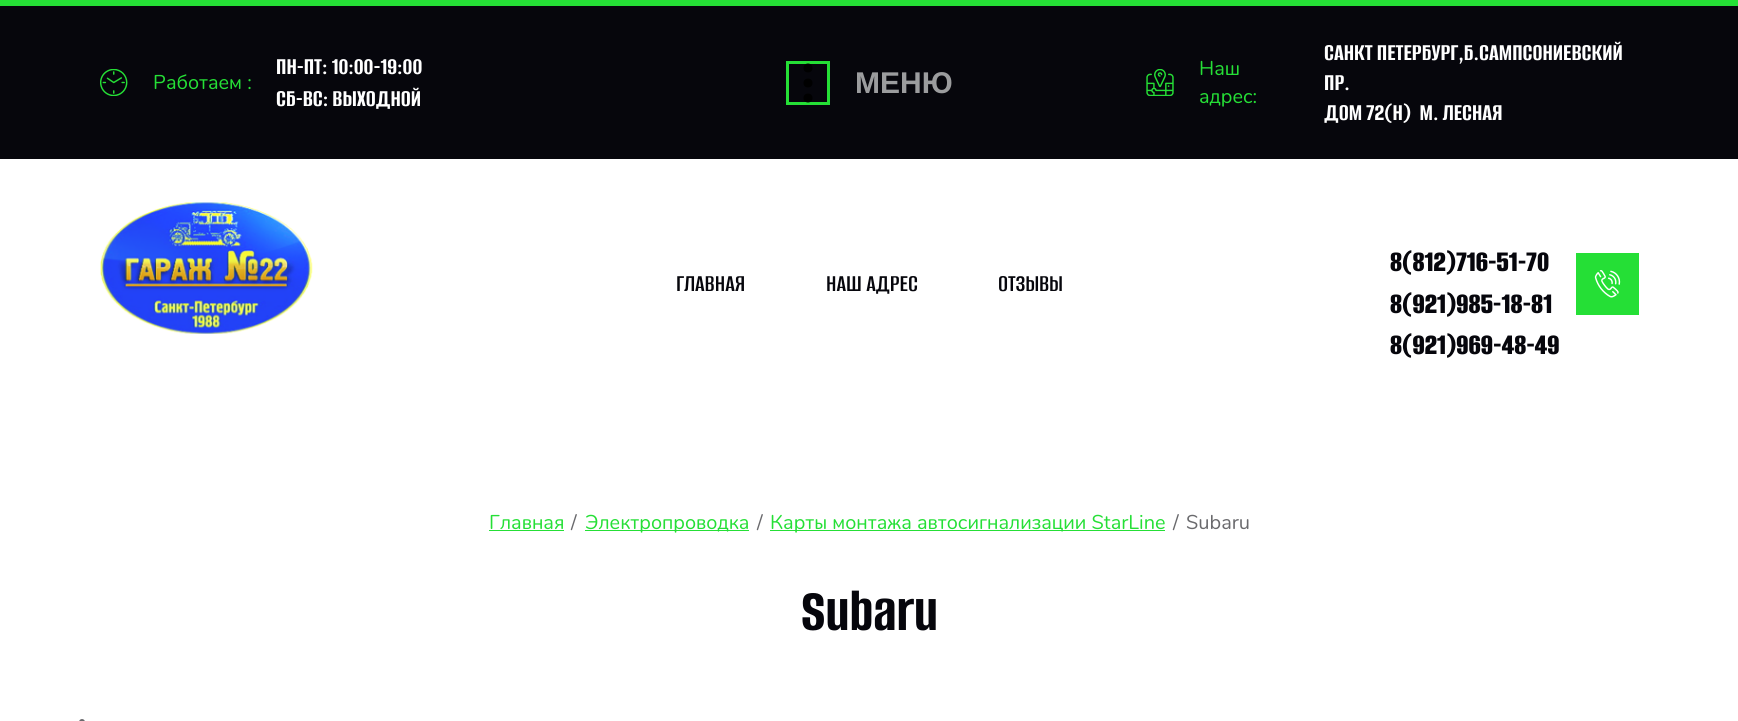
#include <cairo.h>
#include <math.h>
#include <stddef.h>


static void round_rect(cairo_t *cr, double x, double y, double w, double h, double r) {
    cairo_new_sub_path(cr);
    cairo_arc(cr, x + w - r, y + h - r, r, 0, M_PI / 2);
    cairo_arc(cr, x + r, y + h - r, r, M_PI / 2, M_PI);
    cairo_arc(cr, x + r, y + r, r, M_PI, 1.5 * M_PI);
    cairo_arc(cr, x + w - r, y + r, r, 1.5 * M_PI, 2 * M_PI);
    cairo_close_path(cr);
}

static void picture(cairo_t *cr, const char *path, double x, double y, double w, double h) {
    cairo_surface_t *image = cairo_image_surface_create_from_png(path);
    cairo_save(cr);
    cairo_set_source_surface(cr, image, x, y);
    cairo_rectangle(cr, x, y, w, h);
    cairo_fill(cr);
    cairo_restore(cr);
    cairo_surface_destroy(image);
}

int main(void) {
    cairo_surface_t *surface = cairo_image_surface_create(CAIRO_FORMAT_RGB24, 1738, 721);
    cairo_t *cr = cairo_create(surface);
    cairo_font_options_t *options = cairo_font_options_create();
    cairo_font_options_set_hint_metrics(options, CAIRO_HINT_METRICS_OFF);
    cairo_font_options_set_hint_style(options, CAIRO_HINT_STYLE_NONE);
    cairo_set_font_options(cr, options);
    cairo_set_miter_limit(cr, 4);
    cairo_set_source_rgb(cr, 1, 1, 1);
    cairo_paint(cr);
    cairo_set_source_rgb(cr, 0.024, 0.027, 0.047);
    cairo_rectangle(cr, 0, 6, 1738, 153);
    cairo_fill(cr);
    cairo_set_source_rgb(cr, 0.145, 0.875, 0.212);
    cairo_rectangle(cr, 0, 0, 1738, 6);
    cairo_fill(cr);
    picture(cr, "img1.png", 100, 69, 28, 27);
    cairo_select_font_face(cr, "Nunito", CAIRO_FONT_SLANT_NORMAL, CAIRO_FONT_WEIGHT_NORMAL);
    cairo_set_font_size(cr, 20);
    cairo_move_to(cr, 153, 89);
    cairo_show_text(cr, "Работаем :");
    cairo_select_font_face(cr, "Alumni Sans Thin", CAIRO_FONT_SLANT_NORMAL, CAIRO_FONT_WEIGHT_NORMAL);
    cairo_set_font_size(cr, 25);
    cairo_set_source_rgb(cr, 1, 1, 1);
    cairo_move_to(cr, 276, 74);
    cairo_show_text(cr, "ПН-ПТ: 10:00-19:00");
    cairo_move_to(cr, 276, 106);
    cairo_show_text(cr, "СБ-ВС: ВЫХОДНОЙ");
    cairo_rectangle(cr, 787.5, 62.5, 41, 41);
    cairo_set_source_rgb(cr, 0.145, 0.875, 0.212);
    cairo_set_line_width(cr, 3);
    cairo_stroke(cr);
    cairo_set_source_rgb(cr, 0, 0, 0);
    cairo_arc(cr, 808, 68, 4.5, 0, 2 * M_PI);
    cairo_fill(cr);
    cairo_arc(cr, 808, 83, 4.5, 0, 2 * M_PI);
    cairo_fill(cr);
    cairo_arc(cr, 808, 98, 4.5, 0, 2 * M_PI);
    cairo_fill(cr);
    cairo_select_font_face(cr, "Liberation Sans", CAIRO_FONT_SLANT_NORMAL, CAIRO_FONT_WEIGHT_BOLD);
    cairo_set_font_size(cr, 30);
    cairo_set_source_rgb(cr, 0.608, 0.612, 0.62);
    cairo_move_to(cr, 855, 93);
    cairo_show_text(cr, "МЕНЮ");
    picture(cr, "img2.png", 1146, 69, 28, 27);
    cairo_select_font_face(cr, "Nunito", CAIRO_FONT_SLANT_NORMAL, CAIRO_FONT_WEIGHT_NORMAL);
    cairo_set_font_size(cr, 20);
    cairo_set_source_rgb(cr, 0.145, 0.875, 0.212);
    cairo_move_to(cr, 1199, 75);
    cairo_show_text(cr, "Наш");
    cairo_move_to(cr, 1199, 103);
    cairo_show_text(cr, "адрес:");
    cairo_select_font_face(cr, "Alumni Sans Thin", CAIRO_FONT_SLANT_NORMAL, CAIRO_FONT_WEIGHT_NORMAL);
    cairo_set_font_size(cr, 25);
    cairo_set_source_rgb(cr, 1, 1, 1);
    cairo_move_to(cr, 1324, 60);
    cairo_show_text(cr, "САНКТ ПЕТЕРБУРГ,Б.САМПСОНИЕВСКИЙ");
    cairo_move_to(cr, 1324, 90);
    cairo_show_text(cr, "ПР.");
    cairo_move_to(cr, 1324, 120);
    cairo_show_text(cr, "ДОМ 72(Н)  М. ЛЕСНАЯ");
    picture(cr, "img3.png", 100, 202, 213, 132);
    cairo_select_font_face(cr, "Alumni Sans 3 Thin", CAIRO_FONT_SLANT_NORMAL, CAIRO_FONT_WEIGHT_NORMAL);
    cairo_set_source_rgb(cr, 0.024, 0.027, 0.047);
    cairo_move_to(cr, 676, 291);
    cairo_show_text(cr, "ГЛАВНАЯ");
    cairo_move_to(cr, 826, 291);
    cairo_show_text(cr, "НАШ АДРЕС");
    cairo_move_to(cr, 998, 291);
    cairo_show_text(cr, "ОТЗЫВЫ");
    cairo_select_font_face(cr, "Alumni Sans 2 Thin", CAIRO_FONT_SLANT_NORMAL, CAIRO_FONT_WEIGHT_NORMAL);
    cairo_set_font_size(cr, 31.25);
    cairo_move_to(cr, 1390, 271);
    cairo_show_text(cr, "8(812)716-51-70");
    cairo_move_to(cr, 1390, 313);
    cairo_show_text(cr, "8(921)985-18-81");
    cairo_move_to(cr, 1390, 354);
    cairo_show_text(cr, "8(921)969-48-49");
    cairo_set_source_rgb(cr, 0.145, 0.875, 0.212);
    cairo_rectangle(cr, 1576, 253, 63, 62);
    cairo_fill(cr);
    picture(cr, "img4.png", 1594, 270, 27, 28);
    cairo_select_font_face(cr, "Nunito", CAIRO_FONT_SLANT_NORMAL, CAIRO_FONT_WEIGHT_NORMAL);
    cairo_set_font_size(cr, 20);
    cairo_move_to(cr, 489, 529);
    cairo_show_text(cr, "Главная");
    cairo_rectangle(cr, 489, 530, 75, 1);
    cairo_fill(cr);
    cairo_set_source_rgb(cr, 0.416, 0.416, 0.427);
    cairo_move_to(cr, 571, 529);
    cairo_show_text(cr, "/");
    cairo_set_source_rgb(cr, 0.145, 0.875, 0.212);
    cairo_rectangle(cr, 585, 530, 164, 1);
    cairo_fill(cr);
    cairo_move_to(cr, 585, 529);
    cairo_show_text(cr, "Электропроводка");
    cairo_set_source_rgb(cr, 0.416, 0.416, 0.427);
    cairo_move_to(cr, 757, 529);
    cairo_show_text(cr, "/");
    cairo_set_source_rgb(cr, 0.145, 0.875, 0.212);
    cairo_rectangle(cr, 770, 530, 395, 1);
    cairo_fill(cr);
    cairo_move_to(cr, 770, 529);
    cairo_show_text(cr, "Карты монтажа автосигнализации StarLine");
    cairo_set_source_rgb(cr, 0.416, 0.416, 0.427);
    cairo_move_to(cr, 1173, 529);
    cairo_show_text(cr, "/");
    cairo_move_to(cr, 1186, 529);
    cairo_show_text(cr, "Subaru");
    cairo_select_font_face(cr, "Alumni Sans Thin", CAIRO_FONT_SLANT_NORMAL, CAIRO_FONT_WEIGHT_NORMAL);
    cairo_set_font_size(cr, 62.5);
    cairo_set_source_rgb(cr, 0.024, 0.027, 0.047);
    cairo_move_to(cr, 801, 630);
    cairo_show_text(cr, "Subaru");
    cairo_set_source_rgb(cr, 0.416, 0.416, 0.427);
    round_rect(cr, 79, 719, 6, 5, 3);
    cairo_fill(cr);
    cairo_surface_write_to_png(surface, "page.png");
    cairo_font_options_destroy(options);
    cairo_destroy(cr);
    cairo_surface_destroy(surface);
    return 0;
}
